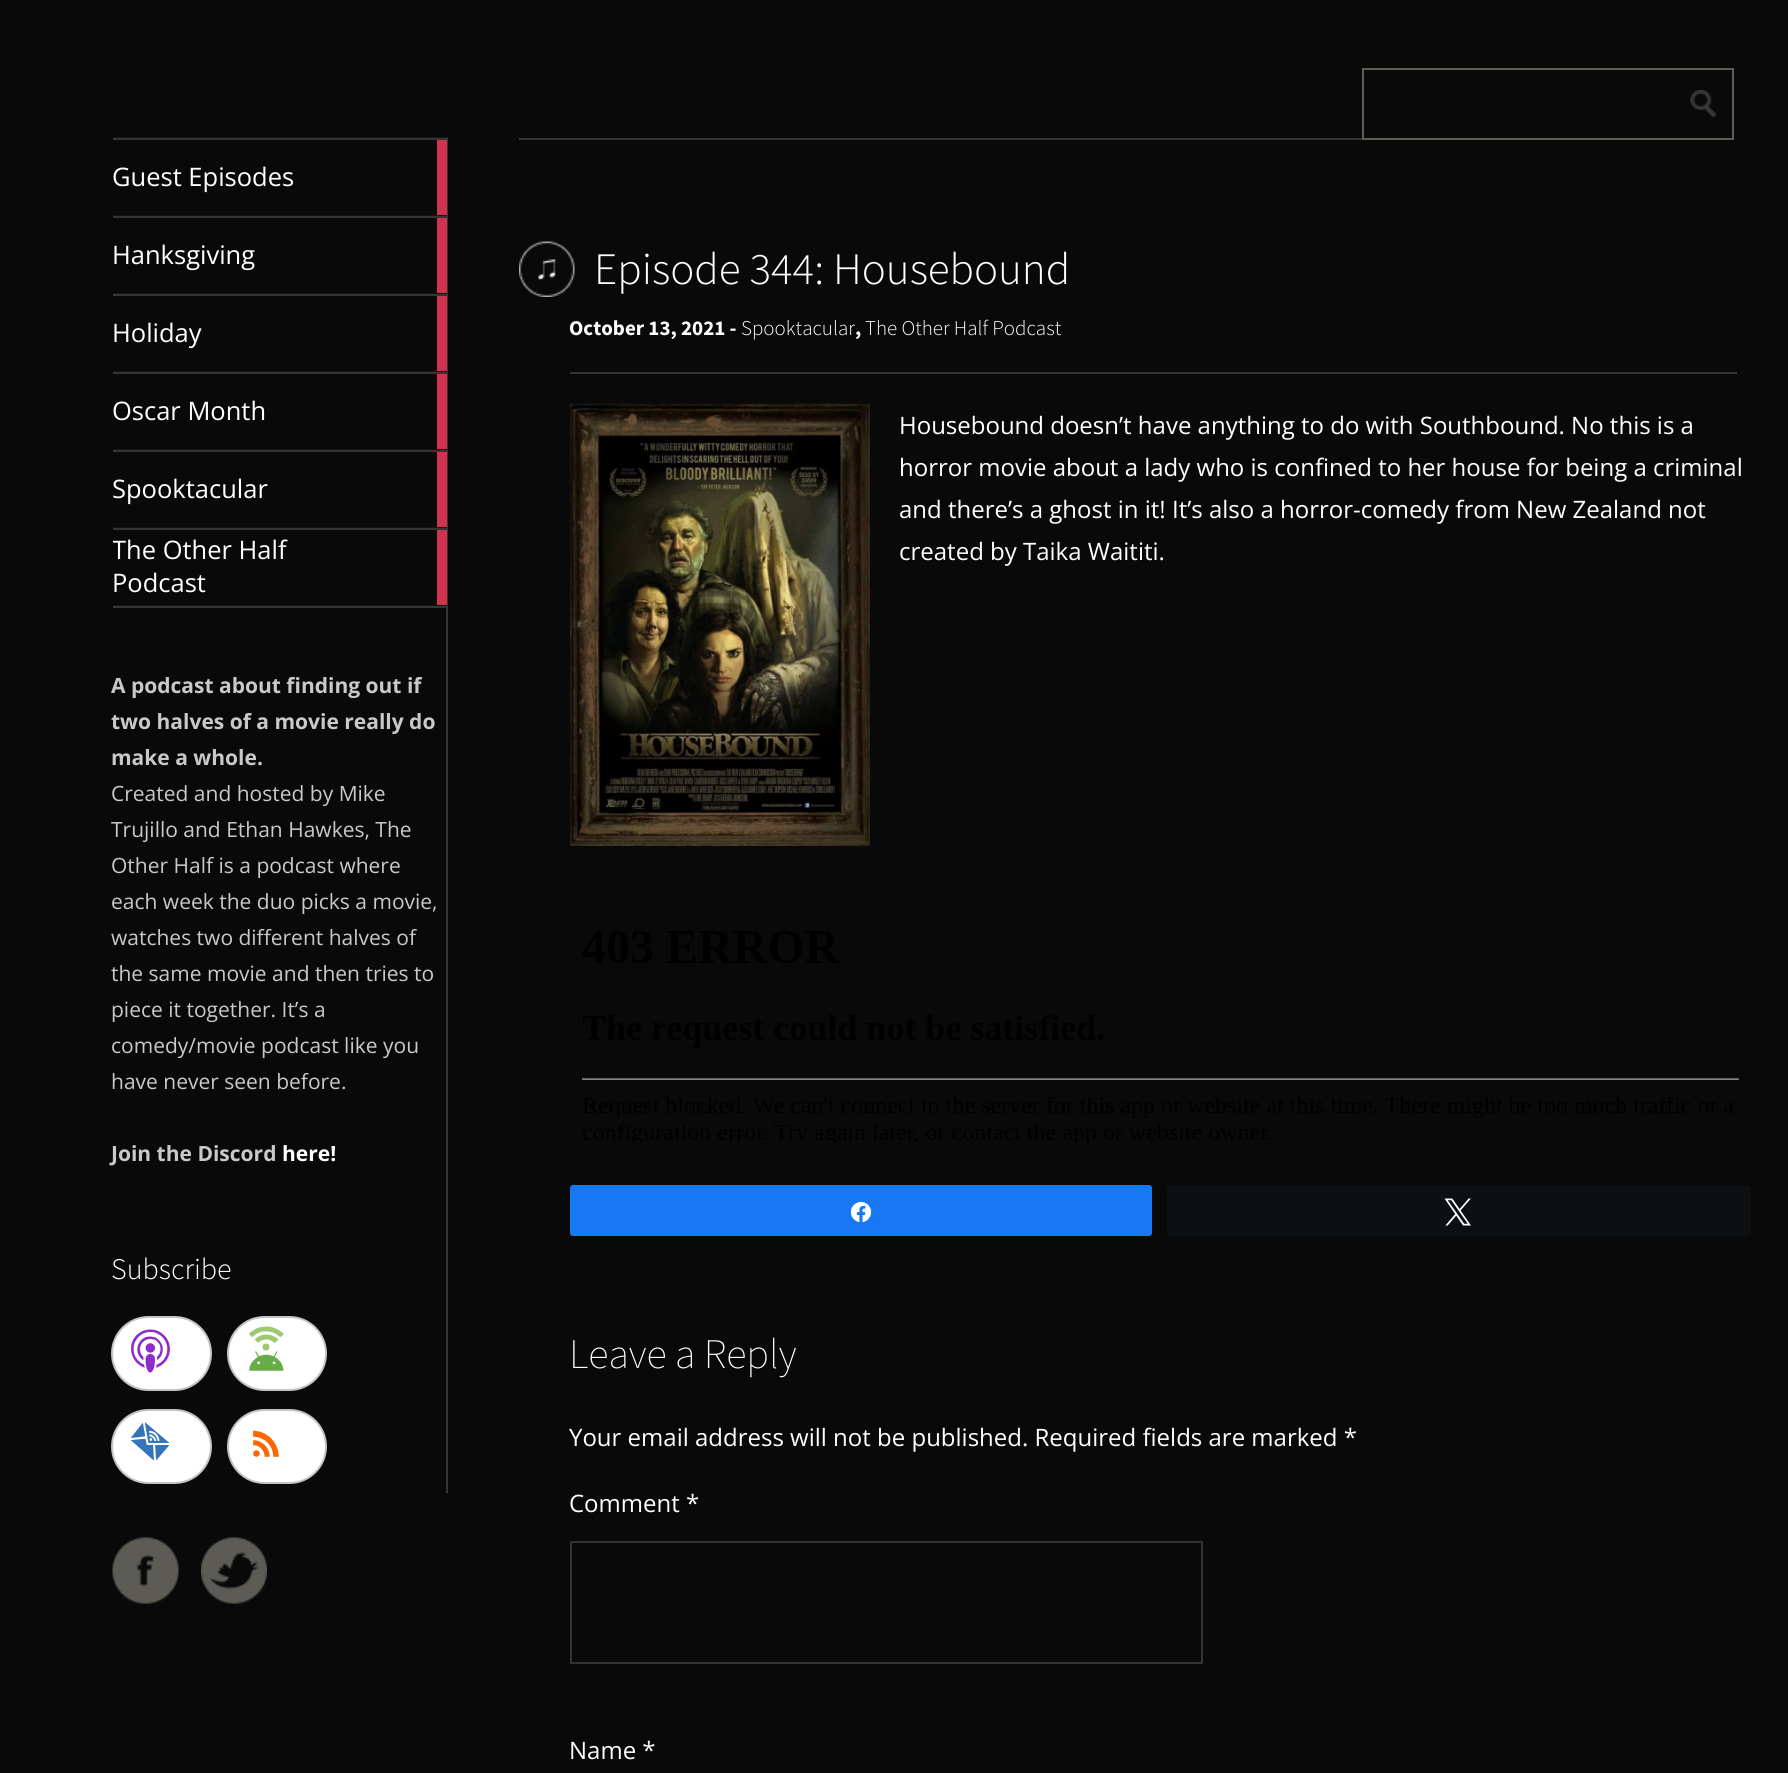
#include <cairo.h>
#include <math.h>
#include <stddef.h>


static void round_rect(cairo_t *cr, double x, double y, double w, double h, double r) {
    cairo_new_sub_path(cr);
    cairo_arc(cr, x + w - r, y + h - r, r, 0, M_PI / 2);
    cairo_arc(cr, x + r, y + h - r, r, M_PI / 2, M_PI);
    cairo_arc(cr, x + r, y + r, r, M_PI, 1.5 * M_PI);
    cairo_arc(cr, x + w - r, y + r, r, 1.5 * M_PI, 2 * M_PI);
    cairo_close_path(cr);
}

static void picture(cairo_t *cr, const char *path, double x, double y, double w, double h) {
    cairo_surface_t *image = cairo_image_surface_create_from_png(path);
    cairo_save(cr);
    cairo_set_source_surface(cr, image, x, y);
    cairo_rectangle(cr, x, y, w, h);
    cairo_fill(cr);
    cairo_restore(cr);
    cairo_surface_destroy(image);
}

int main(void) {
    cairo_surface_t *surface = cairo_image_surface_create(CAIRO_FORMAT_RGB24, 1788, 1773);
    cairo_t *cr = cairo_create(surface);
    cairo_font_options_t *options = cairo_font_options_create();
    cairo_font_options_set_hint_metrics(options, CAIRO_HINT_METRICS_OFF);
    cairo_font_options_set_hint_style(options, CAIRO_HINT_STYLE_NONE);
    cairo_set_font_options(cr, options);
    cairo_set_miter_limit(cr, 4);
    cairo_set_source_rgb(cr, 0.039, 0.039, 0.039);
    cairo_paint(cr);
    cairo_set_source_rgb(cr, 0.208, 0.208, 0.208);
    cairo_rectangle(cr, 446, 137, 2, 1356);
    cairo_fill(cr);
    cairo_set_source_rgb(cr, 0.078, 0.078, 0.078);
    cairo_rectangle(cr, 113, 137, 334, 1);
    cairo_fill(cr);
    cairo_set_source_rgb(cr, 0.208, 0.208, 0.208);
    cairo_rectangle(cr, 113, 606, 334, 2);
    cairo_fill(cr);
    cairo_rectangle(cr, 113, 138, 334, 2);
    cairo_fill(cr);
    cairo_set_source_rgb(cr, 0.078, 0.078, 0.078);
    cairo_rectangle(cr, 113, 215, 334, 1);
    cairo_fill(cr);
    cairo_select_font_face(cr, "Open Sans", CAIRO_FONT_SLANT_NORMAL, CAIRO_FONT_WEIGHT_NORMAL);
    cairo_set_font_size(cr, 25.5);
    cairo_set_source_rgb(cr, 1, 1, 1);
    cairo_move_to(cr, 112, 186);
    cairo_show_text(cr, "Guest Episodes");
    cairo_set_source_rgb(cr, 0.82, 0.2, 0.306);
    cairo_rectangle(cr, 437, 140, 10, 75);
    cairo_fill(cr);
    cairo_set_source_rgb(cr, 0.208, 0.208, 0.208);
    cairo_rectangle(cr, 113, 216, 334, 2);
    cairo_fill(cr);
    cairo_set_source_rgb(cr, 0.078, 0.078, 0.078);
    cairo_rectangle(cr, 113, 293, 334, 1);
    cairo_fill(cr);
    cairo_set_source_rgb(cr, 1, 1, 1);
    cairo_move_to(cr, 112, 264);
    cairo_show_text(cr, "Hanksgiving");
    cairo_set_source_rgb(cr, 0.82, 0.2, 0.306);
    cairo_rectangle(cr, 437, 218, 10, 75);
    cairo_fill(cr);
    cairo_set_source_rgb(cr, 0.208, 0.208, 0.208);
    cairo_rectangle(cr, 113, 294, 334, 2);
    cairo_fill(cr);
    cairo_set_source_rgb(cr, 0.078, 0.078, 0.078);
    cairo_rectangle(cr, 113, 371, 334, 1);
    cairo_fill(cr);
    cairo_set_source_rgb(cr, 1, 1, 1);
    cairo_move_to(cr, 112, 342);
    cairo_show_text(cr, "Holiday");
    cairo_set_source_rgb(cr, 0.82, 0.2, 0.306);
    cairo_rectangle(cr, 437, 296, 10, 75);
    cairo_fill(cr);
    cairo_set_source_rgb(cr, 0.208, 0.208, 0.208);
    cairo_rectangle(cr, 113, 372, 334, 2);
    cairo_fill(cr);
    cairo_set_source_rgb(cr, 0.078, 0.078, 0.078);
    cairo_rectangle(cr, 113, 449, 334, 1);
    cairo_fill(cr);
    cairo_set_source_rgb(cr, 1, 1, 1);
    cairo_move_to(cr, 112, 420);
    cairo_show_text(cr, "Oscar Month");
    cairo_set_source_rgb(cr, 0.82, 0.2, 0.306);
    cairo_rectangle(cr, 437, 374, 10, 75);
    cairo_fill(cr);
    cairo_set_source_rgb(cr, 0.208, 0.208, 0.208);
    cairo_rectangle(cr, 113, 450, 334, 2);
    cairo_fill(cr);
    cairo_set_source_rgb(cr, 0.078, 0.078, 0.078);
    cairo_rectangle(cr, 113, 527, 334, 1);
    cairo_fill(cr);
    cairo_set_source_rgb(cr, 1, 1, 1);
    cairo_move_to(cr, 112, 498);
    cairo_show_text(cr, "Spooktacular");
    cairo_set_source_rgb(cr, 0.82, 0.2, 0.306);
    cairo_rectangle(cr, 437, 452, 10, 75);
    cairo_fill(cr);
    cairo_set_source_rgb(cr, 0.208, 0.208, 0.208);
    cairo_rectangle(cr, 113, 528, 334, 2);
    cairo_fill(cr);
    cairo_set_source_rgb(cr, 0.078, 0.078, 0.078);
    cairo_rectangle(cr, 113, 605, 334, 1);
    cairo_fill(cr);
    cairo_save(cr);
    cairo_rectangle(cr, 113, 530, 334, 75);
    cairo_clip(cr);
    cairo_set_source_rgb(cr, 1, 1, 1);
    cairo_move_to(cr, 112, 559);
    cairo_show_text(cr, "The Other Half");
    cairo_restore(cr);
    cairo_set_source_rgb(cr, 1, 1, 1);
    cairo_move_to(cr, 112, 592);
    cairo_show_text(cr, "Podcast");
    cairo_set_source_rgb(cr, 0.82, 0.2, 0.306);
    cairo_rectangle(cr, 437, 530, 10, 75);
    cairo_fill(cr);
    cairo_select_font_face(cr, "Open Sans", CAIRO_FONT_SLANT_NORMAL, CAIRO_FONT_WEIGHT_BOLD);
    cairo_set_font_size(cr, 21);
    cairo_set_source_rgb(cr, 0.788, 0.788, 0.788);
    cairo_move_to(cr, 111, 693);
    cairo_show_text(cr, "A podcast about finding out if");
    cairo_move_to(cr, 111, 729);
    cairo_show_text(cr, "two halves of a movie really do");
    cairo_move_to(cr, 111, 765);
    cairo_show_text(cr, "make a whole.");
    cairo_select_font_face(cr, "Open Sans", CAIRO_FONT_SLANT_NORMAL, CAIRO_FONT_WEIGHT_NORMAL);
    cairo_move_to(cr, 111, 801);
    cairo_show_text(cr, "Created and hosted by Mike");
    cairo_move_to(cr, 111, 837);
    cairo_show_text(cr, "Trujillo and Ethan Hawkes, The");
    cairo_move_to(cr, 111, 873);
    cairo_show_text(cr, "Other Half is a podcast where");
    cairo_move_to(cr, 111, 909);
    cairo_show_text(cr, "each week the duo picks a movie,");
    cairo_move_to(cr, 111, 945);
    cairo_show_text(cr, "watches two different halves of");
    cairo_move_to(cr, 111, 981);
    cairo_show_text(cr, "the same movie and then tries to");
    cairo_move_to(cr, 111, 1017);
    cairo_show_text(cr, "piece it together. It’s a");
    cairo_move_to(cr, 111, 1053);
    cairo_show_text(cr, "comedy/movie podcast like you");
    cairo_move_to(cr, 111, 1089);
    cairo_show_text(cr, "have never seen before.");
    cairo_select_font_face(cr, "Open Sans", CAIRO_FONT_SLANT_NORMAL, CAIRO_FONT_WEIGHT_BOLD);
    cairo_move_to(cr, 111, 1161);
    cairo_show_text(cr, "Join the Discord");
    cairo_set_source_rgb(cr, 1, 1, 1);
    cairo_move_to(cr, 282, 1161);
    cairo_show_text(cr, "here!");
    cairo_select_font_face(cr, "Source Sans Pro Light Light", CAIRO_FONT_SLANT_NORMAL, CAIRO_FONT_WEIGHT_NORMAL);
    cairo_set_font_size(cr, 30);
    cairo_move_to(cr, 111, 1279);
    cairo_show_text(cr, "Subscribe");
    round_rect(cr, 112, 1317, 99, 73, 36.5);
    cairo_fill_preserve(cr);
    cairo_set_source_rgb(cr, 0.769, 0.769, 0.769);
    cairo_stroke(cr);
    picture(cr, "img1.png", 131, 1329, 39, 44);
    cairo_set_source_rgb(cr, 1, 1, 1);
    round_rect(cr, 228, 1317, 98, 73, 36.5);
    cairo_fill_preserve(cr);
    cairo_set_source_rgb(cr, 0.769, 0.769, 0.769);
    cairo_stroke(cr);
    picture(cr, "img2.png", 248, 1326, 36, 45);
    cairo_set_source_rgb(cr, 1, 1, 1);
    round_rect(cr, 112, 1410, 99, 73, 36.5);
    cairo_fill_preserve(cr);
    cairo_set_source_rgb(cr, 0.769, 0.769, 0.769);
    cairo_stroke(cr);
    picture(cr, "img3.png", 131, 1422, 38, 39);
    cairo_set_source_rgb(cr, 1, 1, 1);
    round_rect(cr, 228, 1410, 98, 73, 36.5);
    cairo_fill_preserve(cr);
    cairo_set_source_rgb(cr, 0.769, 0.769, 0.769);
    cairo_stroke(cr);
    picture(cr, "img4.png", 253, 1430, 26, 27);
    picture(cr, "img5.png", 112, 1537, 67, 67);
    picture(cr, "img6.png", 201, 1537, 66, 67);
    cairo_set_source_rgb(cr, 0.2, 0.2, 0.188);
    cairo_rectangle(cr, 519, 138, 843, 2);
    cairo_fill(cr);
    cairo_rectangle(cr, 1363, 69, 370, 70);
    cairo_set_source_rgb(cr, 0.369, 0.357, 0.325);
    cairo_stroke(cr);
    picture(cr, "img7.png", 1690, 90, 26, 27);
    picture(cr, "img8.png", 519, 241, 56, 56);
    cairo_set_font_size(cr, 45);
    cairo_set_source_rgb(cr, 1, 1, 1);
    cairo_move_to(cr, 594, 284);
    cairo_show_text(cr, "Episode 344: Housebound");
    cairo_set_source_rgb(cr, 0.2, 0.2, 0.188);
    cairo_rectangle(cr, 570, 372, 1167, 2);
    cairo_fill(cr);
    cairo_select_font_face(cr, "Source Sans Pro", CAIRO_FONT_SLANT_NORMAL, CAIRO_FONT_WEIGHT_BOLD);
    cairo_set_font_size(cr, 21);
    cairo_set_source_rgb(cr, 1, 1, 1);
    cairo_move_to(cr, 569, 335);
    cairo_show_text(cr, "October 13, 2021 -");
    cairo_select_font_face(cr, "Source Sans Pro Light Light", CAIRO_FONT_SLANT_NORMAL, CAIRO_FONT_WEIGHT_NORMAL);
    cairo_move_to(cr, 741, 335);
    cairo_show_text(cr, "Spooktacular");
    cairo_select_font_face(cr, "Source Sans Pro", CAIRO_FONT_SLANT_NORMAL, CAIRO_FONT_WEIGHT_BOLD);
    cairo_move_to(cr, 855, 335);
    cairo_show_text(cr, ",");
    cairo_select_font_face(cr, "Source Sans Pro Light Light", CAIRO_FONT_SLANT_NORMAL, CAIRO_FONT_WEIGHT_NORMAL);
    cairo_move_to(cr, 865, 335);
    cairo_show_text(cr, "The Other Half Podcast");
    picture(cr, "img9.png", 570, 403, 300, 443);
    cairo_select_font_face(cr, "Open Sans", CAIRO_FONT_SLANT_NORMAL, CAIRO_FONT_WEIGHT_NORMAL);
    cairo_set_font_size(cr, 24);
    cairo_move_to(cr, 899, 434);
    cairo_show_text(cr, "Housebound doesn’t have anything to do with Southbound. No this is a");
    cairo_move_to(cr, 899, 476);
    cairo_show_text(cr, "horror movie about a lady who is confined to her house for being a criminal");
    cairo_move_to(cr, 899, 518);
    cairo_show_text(cr, "and there’s a ghost in it! It’s also a horror-comedy from New Zealand not");
    cairo_move_to(cr, 899, 560);
    cairo_show_text(cr, "created by Taika Waititi.");
    picture(cr, "img10.png", 582, 931, 1157, 212);
    cairo_set_source_rgb(cr, 0.094, 0.467, 0.949);
    round_rect(cr, 571, 1186, 580, 49, 2);
    cairo_fill_preserve(cr);
    cairo_stroke(cr);
    picture(cr, "img11.png", 850, 1202, 22, 21);
    cairo_set_source_rgb(cr, 0.051, 0.063, 0.078);
    round_rect(cr, 1167, 1185, 584, 51, 3);
    cairo_fill(cr);
    picture(cr, "img12.png", 1444, 1198, 27, 28);
    cairo_select_font_face(cr, "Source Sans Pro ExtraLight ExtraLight", CAIRO_FONT_SLANT_NORMAL, CAIRO_FONT_WEIGHT_NORMAL);
    cairo_set_font_size(cr, 42);
    cairo_set_source_rgb(cr, 1, 1, 1);
    cairo_move_to(cr, 569, 1368);
    cairo_show_text(cr, "Leave a Reply");
    cairo_select_font_face(cr, "Open Sans", CAIRO_FONT_SLANT_NORMAL, CAIRO_FONT_WEIGHT_NORMAL);
    cairo_set_font_size(cr, 24);
    cairo_move_to(cr, 569, 1446);
    cairo_show_text(cr, "Your email address will not be published. Required fields are marked *");
    cairo_move_to(cr, 569, 1512);
    cairo_show_text(cr, "Comment *");
    cairo_rectangle(cr, 571, 1542, 631, 121);
    cairo_set_source_rgb(cr, 0.2, 0.2, 0.188);
    cairo_stroke(cr);
    cairo_set_source_rgb(cr, 1, 1, 1);
    cairo_move_to(cr, 569, 1759);
    cairo_show_text(cr, "Name *");
    cairo_surface_write_to_png(surface, "page.png");
    cairo_font_options_destroy(options);
    cairo_destroy(cr);
    cairo_surface_destroy(surface);
    return 0;
}
